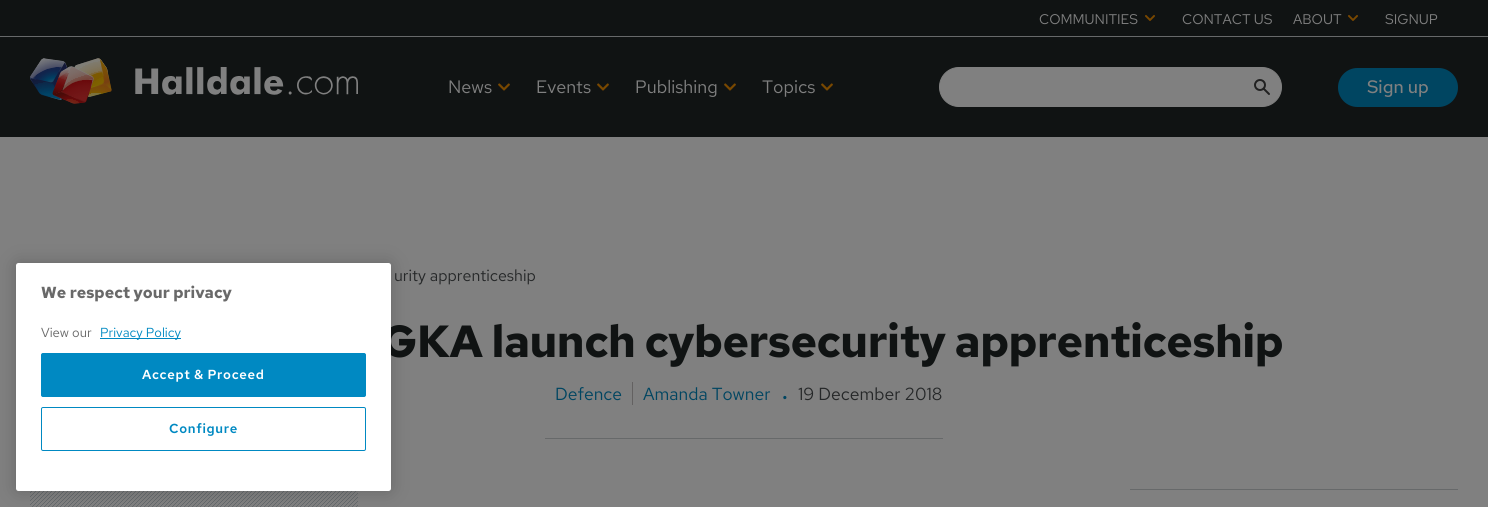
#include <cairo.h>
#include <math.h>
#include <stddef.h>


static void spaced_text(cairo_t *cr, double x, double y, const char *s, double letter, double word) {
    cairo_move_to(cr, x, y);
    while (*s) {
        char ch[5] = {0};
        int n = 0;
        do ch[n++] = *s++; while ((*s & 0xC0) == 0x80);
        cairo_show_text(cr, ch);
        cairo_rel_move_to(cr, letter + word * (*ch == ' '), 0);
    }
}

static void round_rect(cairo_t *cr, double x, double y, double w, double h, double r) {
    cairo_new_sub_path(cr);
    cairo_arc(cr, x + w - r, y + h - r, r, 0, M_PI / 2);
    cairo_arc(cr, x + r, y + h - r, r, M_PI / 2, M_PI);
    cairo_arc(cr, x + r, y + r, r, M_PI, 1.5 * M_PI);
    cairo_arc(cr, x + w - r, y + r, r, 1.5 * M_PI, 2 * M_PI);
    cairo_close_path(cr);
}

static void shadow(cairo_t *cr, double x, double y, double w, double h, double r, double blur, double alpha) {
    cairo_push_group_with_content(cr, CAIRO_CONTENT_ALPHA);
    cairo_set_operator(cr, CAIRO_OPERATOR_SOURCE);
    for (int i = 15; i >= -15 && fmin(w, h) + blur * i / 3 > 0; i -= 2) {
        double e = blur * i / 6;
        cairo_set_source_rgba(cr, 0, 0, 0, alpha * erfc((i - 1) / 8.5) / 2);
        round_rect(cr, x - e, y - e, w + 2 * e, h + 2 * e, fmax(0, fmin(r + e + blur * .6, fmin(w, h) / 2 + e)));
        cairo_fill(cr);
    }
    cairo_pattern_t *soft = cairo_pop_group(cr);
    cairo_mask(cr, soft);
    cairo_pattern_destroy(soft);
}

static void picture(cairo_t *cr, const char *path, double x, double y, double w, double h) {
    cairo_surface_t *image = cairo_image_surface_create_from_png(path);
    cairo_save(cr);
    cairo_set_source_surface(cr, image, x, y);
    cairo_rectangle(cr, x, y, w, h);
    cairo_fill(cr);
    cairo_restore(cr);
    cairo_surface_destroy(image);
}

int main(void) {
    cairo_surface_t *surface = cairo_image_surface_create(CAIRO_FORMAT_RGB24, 1488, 507);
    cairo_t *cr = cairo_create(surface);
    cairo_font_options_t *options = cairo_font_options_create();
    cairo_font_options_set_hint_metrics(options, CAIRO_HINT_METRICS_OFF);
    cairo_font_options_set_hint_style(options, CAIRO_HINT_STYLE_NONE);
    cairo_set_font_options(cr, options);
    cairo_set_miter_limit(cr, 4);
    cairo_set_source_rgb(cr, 0.502, 0.502, 0.502);
    cairo_paint(cr);
    picture(cr, "img5.png", 30, 491, 328, 16);
    cairo_set_source_rgb(cr, 0, 0, 0);
    shadow(cr, 16, 263, 375, 228, 2.5, 9, 0.2);
    cairo_select_font_face(cr, "Red Hat Text", CAIRO_FONT_SLANT_NORMAL, CAIRO_FONT_WEIGHT_BOLD);
    cairo_set_font_size(cr, 45);
    cairo_set_source_rgb(cr, 0.063, 0.075, 0.078);
    spaced_text(cr, 381, 357, "GKA launch cybersecurity apprenticeship", -0.5, 0);
    cairo_set_source_rgb(cr, 1, 1, 1);
    round_rect(cr, 16, 263, 375, 228, 2.5);
    cairo_fill(cr);
    cairo_set_font_size(cr, 16);
    cairo_set_source_rgb(cr, 0.412, 0.412, 0.412);
    cairo_move_to(cr, 41, 298);
    cairo_show_text(cr, "We respect your privacy");
    cairo_select_font_face(cr, "Red Hat Text", CAIRO_FONT_SLANT_NORMAL, CAIRO_FONT_WEIGHT_NORMAL);
    cairo_set_font_size(cr, 13.1);
    cairo_move_to(cr, 41, 337);
    cairo_show_text(cr, "View our");
    cairo_set_source_rgb(cr, 0, 0.537, 0.761);
    cairo_rectangle(cr, 100, 338, 81, 1);
    cairo_fill(cr);
    cairo_move_to(cr, 100, 337);
    cairo_show_text(cr, "Privacy Policy");
    round_rect(cr, 41.5, 353.5, 324, 43, 1.5);
    cairo_fill_preserve(cr);
    cairo_set_line_width(cr, 1);
    cairo_stroke(cr);
    cairo_select_font_face(cr, "Red Hat Text SemiBold", CAIRO_FONT_SLANT_NORMAL, CAIRO_FONT_WEIGHT_NORMAL);
    cairo_set_source_rgb(cr, 1, 1, 1);
    spaced_text(cr, 142, 379, "Accept & Proceed", 0.7, 0);
    round_rect(cr, 41.5, 407.5, 324, 43, 1.5);
    cairo_set_source_rgb(cr, 0, 0.537, 0.761);
    cairo_stroke(cr);
    spaced_text(cr, 169, 433, "Configure", 0.7, 0);
    cairo_set_source_rgb(cr, 0.063, 0.075, 0.078);
    cairo_rectangle(cr, 0, 0, 1488, 36);
    cairo_fill(cr);
    cairo_set_source_rgb(cr, 0.404, 0.412, 0.416);
    cairo_rectangle(cr, 0, 36, 1488, 1);
    cairo_fill(cr);
    cairo_select_font_face(cr, "Red Hat Text", CAIRO_FONT_SLANT_NORMAL, CAIRO_FONT_WEIGHT_NORMAL);
    cairo_set_font_size(cr, 14);
    cairo_set_source_rgb(cr, 0.502, 0.502, 0.502);
    cairo_move_to(cr, 1039, 24);
    cairo_show_text(cr, "COMMUNITIES");
    picture(cr, "img1.png", 1145, 15, 10, 6);
    cairo_move_to(cr, 1182, 24);
    cairo_show_text(cr, "CONTACT US");
    cairo_move_to(cr, 1293, 24);
    cairo_show_text(cr, "ABOUT");
    picture(cr, "img1.png", 1348, 15, 10, 6);
    cairo_move_to(cr, 1385, 24);
    cairo_show_text(cr, "SIGNUP");
    cairo_set_source_rgb(cr, 0.063, 0.075, 0.078);
    cairo_rectangle(cr, 0, 37, 1488, 100);
    cairo_fill(cr);
    picture(cr, "img2.png", 30, 58, 328, 46);
    cairo_set_font_size(cr, 18);
    cairo_set_source_rgb(cr, 0.502, 0.502, 0.502);
    cairo_move_to(cr, 448, 93);
    cairo_show_text(cr, "News");
    picture(cr, "img3.png", 498, 83, 12, 8);
    cairo_move_to(cr, 536, 93);
    cairo_show_text(cr, "Events");
    picture(cr, "img3.png", 597, 83, 12, 8);
    cairo_move_to(cr, 635, 93);
    cairo_show_text(cr, "Publishing");
    picture(cr, "img3.png", 724, 83, 12, 8);
    cairo_move_to(cr, 762, 93);
    cairo_show_text(cr, "Topics");
    picture(cr, "img3.png", 821, 83, 12, 8);
    round_rect(cr, 939.5, 67.5, 342, 39, 19.5);
    cairo_fill_preserve(cr);
    cairo_stroke(cr);
    picture(cr, "img4.png", 1254, 79, 16, 16);
    cairo_set_source_rgb(cr, 0, 0.271, 0.38);
    round_rect(cr, 1338, 68, 120, 39, 19.5);
    cairo_fill(cr);
    cairo_select_font_face(cr, "Red Hat Text Medium", CAIRO_FONT_SLANT_NORMAL, CAIRO_FONT_WEIGHT_NORMAL);
    cairo_set_source_rgb(cr, 0.502, 0.502, 0.502);
    cairo_move_to(cr, 1367, 93);
    cairo_show_text(cr, "Sign up");
    cairo_select_font_face(cr, "Red Hat Text", CAIRO_FONT_SLANT_NORMAL, CAIRO_FONT_WEIGHT_NORMAL);
    cairo_set_font_size(cr, 16);
    cairo_set_source_rgb(cr, 0.145, 0.153, 0.157);
    cairo_move_to(cr, 394, 281);
    cairo_show_text(cr, "urity apprenticeship");
    cairo_set_source_rgb(cr, 0.404, 0.412, 0.416);
    cairo_rectangle(cr, 545, 438, 398, 1);
    cairo_fill(cr);
    cairo_set_font_size(cr, 17.5);
    cairo_set_source_rgb(cr, 0, 0.271, 0.38);
    cairo_move_to(cr, 555, 400);
    cairo_show_text(cr, "Defence");
    cairo_move_to(cr, 643, 400);
    cairo_show_text(cr, "Amanda Towner");
    cairo_set_source_rgb(cr, 0.388, 0.38, 0.38);
    cairo_rectangle(cr, 632, 382, 1, 23);
    cairo_fill(cr);
    cairo_set_font_size(cr, 30);
    cairo_set_source_rgb(cr, 0, 0.271, 0.38);
    cairo_move_to(cr, 781, 406);
    cairo_show_text(cr, "·");
    cairo_set_font_size(cr, 17.5);
    cairo_set_source_rgb(cr, 0.145, 0.153, 0.157);
    cairo_move_to(cr, 798, 400);
    cairo_show_text(cr, "19 December 2018");
    cairo_set_source_rgb(cr, 0.404, 0.412, 0.416);
    cairo_rectangle(cr, 1130, 489, 328, 1);
    cairo_fill(cr);
    cairo_surface_write_to_png(surface, "page.png");
    cairo_font_options_destroy(options);
    cairo_destroy(cr);
    cairo_surface_destroy(surface);
    return 0;
}
